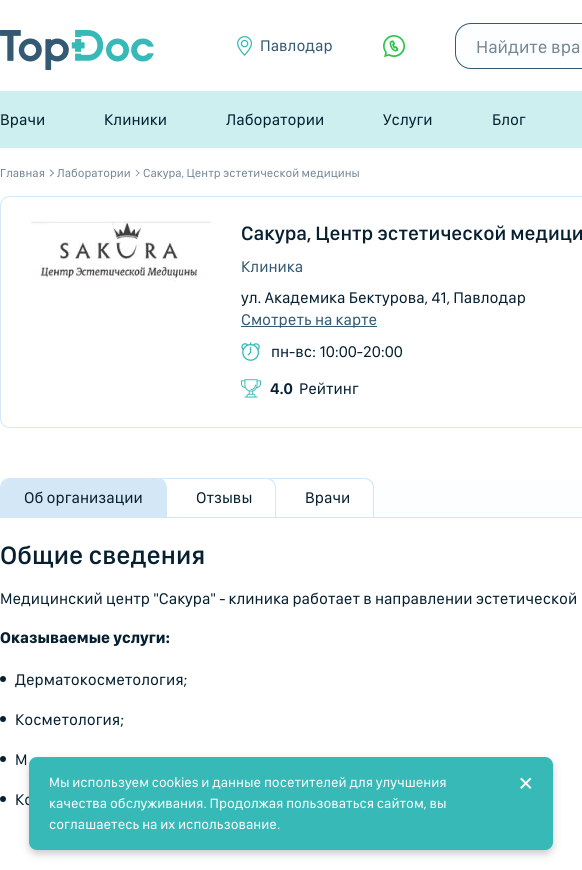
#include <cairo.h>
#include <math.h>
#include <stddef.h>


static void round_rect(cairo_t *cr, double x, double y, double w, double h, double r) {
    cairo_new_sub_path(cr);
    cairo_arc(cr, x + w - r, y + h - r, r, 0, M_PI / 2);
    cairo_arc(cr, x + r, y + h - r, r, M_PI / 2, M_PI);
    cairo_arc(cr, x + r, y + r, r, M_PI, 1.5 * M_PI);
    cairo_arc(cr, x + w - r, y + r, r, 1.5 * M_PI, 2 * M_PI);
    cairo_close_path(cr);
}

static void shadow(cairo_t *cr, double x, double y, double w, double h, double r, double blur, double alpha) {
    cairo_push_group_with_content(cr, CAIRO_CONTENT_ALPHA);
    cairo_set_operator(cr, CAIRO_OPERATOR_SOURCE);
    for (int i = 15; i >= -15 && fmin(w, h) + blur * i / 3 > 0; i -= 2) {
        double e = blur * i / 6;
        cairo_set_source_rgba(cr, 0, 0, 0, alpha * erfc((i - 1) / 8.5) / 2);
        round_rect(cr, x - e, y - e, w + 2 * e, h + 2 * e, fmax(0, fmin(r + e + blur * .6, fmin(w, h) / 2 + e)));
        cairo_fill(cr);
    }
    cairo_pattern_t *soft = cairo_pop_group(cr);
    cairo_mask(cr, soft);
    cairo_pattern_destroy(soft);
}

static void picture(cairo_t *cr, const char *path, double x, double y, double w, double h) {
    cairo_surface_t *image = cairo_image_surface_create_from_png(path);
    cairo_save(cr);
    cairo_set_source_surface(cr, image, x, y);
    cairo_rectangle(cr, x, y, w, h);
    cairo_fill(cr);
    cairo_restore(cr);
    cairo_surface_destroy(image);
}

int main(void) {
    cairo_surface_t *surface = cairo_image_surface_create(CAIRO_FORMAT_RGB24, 582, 870);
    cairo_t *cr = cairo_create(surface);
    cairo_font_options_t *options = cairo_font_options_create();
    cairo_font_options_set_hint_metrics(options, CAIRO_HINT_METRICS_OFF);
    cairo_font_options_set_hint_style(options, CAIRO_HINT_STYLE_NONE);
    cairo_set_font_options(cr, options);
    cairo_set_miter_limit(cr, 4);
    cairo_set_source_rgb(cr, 1, 1, 1);
    cairo_paint(cr);
    picture(cr, "img1.png", 0, 30, 154, 40);
    picture(cr, "img2.png", 237, 36, 15, 20);
    cairo_select_font_face(cr, "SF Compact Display", CAIRO_FONT_SLANT_NORMAL, CAIRO_FONT_WEIGHT_NORMAL);
    cairo_set_font_size(cr, 16);
    cairo_set_source_rgb(cr, 0.2, 0.349, 0.451);
    cairo_move_to(cr, 260, 51);
    cairo_show_text(cr, "Павлодар");
    picture(cr, "img3.png", 383, 35, 22, 22);
    cairo_set_source_rgb(cr, 0.988, 0.996, 1);
    round_rect(cr, 455.5, 23.5, 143, 45, 15.5);
    cairo_fill_preserve(cr);
    cairo_set_source_rgb(cr, 0.2, 0.349, 0.451);
    cairo_set_line_width(cr, 1);
    cairo_stroke(cr);
    cairo_set_font_size(cr, 18);
    cairo_set_source_rgb(cr, 0.455, 0.529, 0.58);
    cairo_move_to(cr, 476, 53);
    cairo_show_text(cr, "Найдите вра");
    cairo_set_source_rgb(cr, 0.804, 0.937, 0.937);
    cairo_rectangle(cr, 0, 91, 582, 57);
    cairo_fill(cr);
    cairo_set_font_size(cr, 16);
    cairo_set_source_rgb(cr, 0.024, 0.125, 0.196);
    cairo_move_to(cr, 0, 125);
    cairo_show_text(cr, "Врачи");
    cairo_move_to(cr, 104, 125);
    cairo_show_text(cr, "Клиники");
    cairo_move_to(cr, 226, 125);
    cairo_show_text(cr, "Лаборатории");
    cairo_move_to(cr, 383, 125);
    cairo_show_text(cr, "Услуги");
    cairo_move_to(cr, 492, 125);
    cairo_show_text(cr, "Блог");
    cairo_set_font_size(cr, 12);
    cairo_set_source_rgb(cr, 0.455, 0.529, 0.58);
    cairo_move_to(cr, 0, 177);
    cairo_show_text(cr, "Главная");
    cairo_new_path(cr);
    cairo_move_to(cr, 49.5, 170);
    cairo_line_to(cr, 50.5, 169.5);
    cairo_line_to(cr, 54, 173);
    cairo_line_to(cr, 53.5, 173.5);
    cairo_close_path(cr);
    cairo_fill(cr);
    cairo_new_path(cr);
    cairo_move_to(cr, 49.5, 176);
    cairo_line_to(cr, 53.5, 172.5);
    cairo_line_to(cr, 54, 173);
    cairo_line_to(cr, 50.5, 176.5);
    cairo_close_path(cr);
    cairo_fill(cr);
    cairo_move_to(cr, 57, 177);
    cairo_show_text(cr, "Лаборатории");
    cairo_new_path(cr);
    cairo_move_to(cr, 135.5, 170);
    cairo_line_to(cr, 136, 169.5);
    cairo_line_to(cr, 139.5, 173);
    cairo_line_to(cr, 139, 173.5);
    cairo_close_path(cr);
    cairo_fill(cr);
    cairo_new_path(cr);
    cairo_move_to(cr, 135.5, 176);
    cairo_line_to(cr, 139, 172.5);
    cairo_line_to(cr, 139.5, 173);
    cairo_line_to(cr, 136, 176.5);
    cairo_close_path(cr);
    cairo_fill(cr);
    cairo_move_to(cr, 143, 177);
    cairo_show_text(cr, "Сакура, Центр эстетической медицины");
    round_rect(cr, 0.5, 196.5, 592, 231, 9.5);
    cairo_set_source_rgb(cr, 0.827, 0.906, 0.961);
    cairo_stroke(cr);
    picture(cr, "img4.png", 31, 221, 180, 61);
    cairo_select_font_face(cr, "SF Compact Display Medium", CAIRO_FONT_SLANT_NORMAL, CAIRO_FONT_WEIGHT_NORMAL);
    cairo_set_font_size(cr, 20);
    cairo_set_source_rgb(cr, 0.024, 0.125, 0.196);
    cairo_move_to(cr, 241, 240);
    cairo_show_text(cr, "Сакура, Центр эстетической медици");
    cairo_select_font_face(cr, "SF Compact Display", CAIRO_FONT_SLANT_NORMAL, CAIRO_FONT_WEIGHT_NORMAL);
    cairo_set_font_size(cr, 16);
    cairo_set_source_rgb(cr, 0.2, 0.349, 0.451);
    cairo_move_to(cr, 241, 272);
    cairo_show_text(cr, "Клиника");
    cairo_set_source_rgb(cr, 0.024, 0.125, 0.196);
    cairo_move_to(cr, 241, 303);
    cairo_show_text(cr, "ул. Академика Бектурова, 41, Павлодар");
    cairo_set_source_rgb(cr, 0.2, 0.349, 0.451);
    cairo_rectangle(cr, 241, 326, 136, 1);
    cairo_fill(cr);
    cairo_move_to(cr, 241, 325);
    cairo_show_text(cr, "Смотреть на карте");
    picture(cr, "img5.png", 241, 342, 19, 19);
    cairo_set_source_rgb(cr, 0.024, 0.125, 0.196);
    cairo_move_to(cr, 271, 357);
    cairo_show_text(cr, "пн-вс: 10:00-20:00");
    picture(cr, "img6.png", 241, 379, 20, 19);
    cairo_select_font_face(cr, "SF Compact Display SemiBold", CAIRO_FONT_SLANT_NORMAL, CAIRO_FONT_WEIGHT_NORMAL);
    cairo_move_to(cr, 270, 394);
    cairo_show_text(cr, "4.0");
    cairo_select_font_face(cr, "SF Compact Display", CAIRO_FONT_SLANT_NORMAL, CAIRO_FONT_WEIGHT_NORMAL);
    cairo_move_to(cr, 299, 394);
    cairo_show_text(cr, "Рейтинг");
    cairo_set_source_rgb(cr, 0.988, 0.996, 1);
    cairo_rectangle(cr, 0, 478, 582, 39);
    cairo_fill(cr);
    cairo_set_source_rgb(cr, 0.827, 0.906, 0.961);
    cairo_rectangle(cr, 0, 517, 582, 1);
    cairo_fill(cr);
    cairo_set_source_rgb(cr, 1, 1, 1);
    cairo_new_path(cr);
    cairo_move_to(cr, 259, 479);
    cairo_line_to(cr, 364, 479);
    cairo_curve_to(cr, 369, 479, 373, 483, 373, 488);
    cairo_line_to(cr, 373, 517);
    cairo_line_to(cr, 250, 517);
    cairo_line_to(cr, 250, 488);
    cairo_curve_to(cr, 250, 483, 254, 479, 259, 479);
    cairo_close_path(cr);
    cairo_fill(cr);
    cairo_set_source_rgb(cr, 0.827, 0.906, 0.961);
    cairo_set_fill_rule(cr, CAIRO_FILL_RULE_EVEN_ODD);
    cairo_new_path(cr);
    cairo_move_to(cr, 259, 478);
    cairo_line_to(cr, 364, 478);
    cairo_curve_to(cr, 370, 478, 374, 482, 374, 488);
    cairo_line_to(cr, 374, 517);
    cairo_line_to(cr, 249, 517);
    cairo_line_to(cr, 249, 488);
    cairo_curve_to(cr, 249, 482, 253, 478, 259, 478);
    cairo_close_path(cr);
    cairo_move_to(cr, 259, 479);
    cairo_line_to(cr, 364, 479);
    cairo_curve_to(cr, 369, 479, 373, 483, 373, 488);
    cairo_line_to(cr, 373, 517);
    cairo_line_to(cr, 250, 517);
    cairo_line_to(cr, 250, 488);
    cairo_curve_to(cr, 250, 483, 254, 479, 259, 479);
    cairo_close_path(cr);
    cairo_fill(cr);
    cairo_set_source_rgb(cr, 1, 1, 1);
    cairo_new_path(cr);
    cairo_move_to(cr, 150, 479);
    cairo_line_to(cr, 266, 479);
    cairo_curve_to(cr, 271, 479, 275, 483, 275, 488);
    cairo_line_to(cr, 275, 517);
    cairo_line_to(cr, 141, 517);
    cairo_line_to(cr, 141, 488);
    cairo_curve_to(cr, 141, 483, 145, 479, 150, 479);
    cairo_close_path(cr);
    cairo_fill(cr);
    cairo_set_source_rgb(cr, 0.827, 0.906, 0.961);
    cairo_new_path(cr);
    cairo_move_to(cr, 150, 478);
    cairo_line_to(cr, 266, 478);
    cairo_curve_to(cr, 272, 478, 276, 482, 276, 488);
    cairo_line_to(cr, 276, 517);
    cairo_line_to(cr, 140, 517);
    cairo_line_to(cr, 140, 488);
    cairo_curve_to(cr, 140, 482, 144, 478, 150, 478);
    cairo_close_path(cr);
    cairo_move_to(cr, 150, 479);
    cairo_line_to(cr, 266, 479);
    cairo_curve_to(cr, 271, 479, 275, 483, 275, 488);
    cairo_line_to(cr, 275, 517);
    cairo_line_to(cr, 141, 517);
    cairo_line_to(cr, 141, 488);
    cairo_curve_to(cr, 141, 483, 145, 479, 150, 479);
    cairo_close_path(cr);
    cairo_fill(cr);
    cairo_new_path(cr);
    cairo_move_to(cr, 10, 479);
    cairo_line_to(cr, 157, 479);
    cairo_curve_to(cr, 162, 479, 166, 483, 166, 488);
    cairo_line_to(cr, 166, 517);
    cairo_line_to(cr, 1, 517);
    cairo_line_to(cr, 1, 488);
    cairo_curve_to(cr, 1, 483, 5, 479, 10, 479);
    cairo_close_path(cr);
    cairo_fill(cr);
    cairo_new_path(cr);
    cairo_move_to(cr, 10, 478);
    cairo_line_to(cr, 157, 478);
    cairo_curve_to(cr, 163, 478, 167, 482, 167, 488);
    cairo_line_to(cr, 167, 517);
    cairo_line_to(cr, 0, 517);
    cairo_line_to(cr, 0, 488);
    cairo_curve_to(cr, 0, 482, 4, 478, 10, 478);
    cairo_close_path(cr);
    cairo_move_to(cr, 10, 479);
    cairo_line_to(cr, 157, 479);
    cairo_curve_to(cr, 162, 479, 166, 483, 166, 488);
    cairo_line_to(cr, 166, 517);
    cairo_line_to(cr, 1, 517);
    cairo_line_to(cr, 1, 488);
    cairo_curve_to(cr, 1, 483, 5, 479, 10, 479);
    cairo_close_path(cr);
    cairo_fill(cr);
    cairo_set_source_rgb(cr, 0.024, 0.125, 0.196);
    cairo_move_to(cr, 24, 503);
    cairo_show_text(cr, "Об организации");
    cairo_move_to(cr, 196, 503);
    cairo_show_text(cr, "Отзывы");
    cairo_move_to(cr, 305, 503);
    cairo_show_text(cr, "Врачи");
    cairo_select_font_face(cr, "SF Compact Display Medium", CAIRO_FONT_SLANT_NORMAL, CAIRO_FONT_WEIGHT_NORMAL);
    cairo_set_font_size(cr, 26);
    cairo_move_to(cr, 0, 564);
    cairo_show_text(cr, "Общие сведения");
    cairo_select_font_face(cr, "SF Compact Display", CAIRO_FONT_SLANT_NORMAL, CAIRO_FONT_WEIGHT_NORMAL);
    cairo_set_font_size(cr, 16);
    cairo_move_to(cr, 0, 604);
    cairo_show_text(cr, "Медицинский центр \"Сакура\" - клиника работает в направлении эстетической");
    cairo_select_font_face(cr, "SF Compact Display", CAIRO_FONT_SLANT_NORMAL, CAIRO_FONT_WEIGHT_BOLD);
    cairo_move_to(cr, 0, 643);
    cairo_show_text(cr, "Оказываемые услуги:");
    cairo_new_path(cr);
    cairo_arc(cr, 3, 679, 3, 0, 2 * M_PI);
    cairo_fill(cr);
    cairo_select_font_face(cr, "SF Compact Display", CAIRO_FONT_SLANT_NORMAL, CAIRO_FONT_WEIGHT_NORMAL);
    cairo_move_to(cr, 15, 685);
    cairo_show_text(cr, "Дерматокосметология;");
    cairo_new_path(cr);
    cairo_arc(cr, 3, 719, 3, 0, 2 * M_PI);
    cairo_fill(cr);
    cairo_move_to(cr, 15, 725);
    cairo_show_text(cr, "Косметология;");
    cairo_new_path(cr);
    cairo_arc(cr, 3, 759, 3, 0, 2 * M_PI);
    cairo_fill(cr);
    cairo_move_to(cr, 15, 765);
    cairo_show_text(cr, "М");
    cairo_new_path(cr);
    cairo_arc(cr, 3, 799, 3, 0, 2 * M_PI);
    cairo_fill(cr);
    cairo_move_to(cr, 15, 805);
    cairo_show_text(cr, "Ко");
    cairo_set_source_rgb(cr, 0, 0, 0);
    shadow(cr, 29, 761, 524, 93, 8, 4, 0.2);
    cairo_set_source_rgb(cr, 0.216, 0.725, 0.718);
    round_rect(cr, 29, 757, 524, 93, 8);
    cairo_fill(cr);
    cairo_set_font_size(cr, 14);
    cairo_set_source_rgb(cr, 1, 1, 1);
    cairo_move_to(cr, 49, 787);
    cairo_show_text(cr, "Мы используем cookies и данные посетителей для улучшения");
    cairo_move_to(cr, 49, 808);
    cairo_show_text(cr, "качества обслуживания. Продолжая пользоваться сайтом, вы");
    cairo_move_to(cr, 49, 829);
    cairo_show_text(cr, "соглашаетесь на их использование.");
    cairo_set_font_size(cr, 28);
    cairo_move_to(cr, 518, 790);
    cairo_show_text(cr, "×");
    cairo_surface_write_to_png(surface, "page.png");
    cairo_font_options_destroy(options);
    cairo_destroy(cr);
    cairo_surface_destroy(surface);
    return 0;
}
